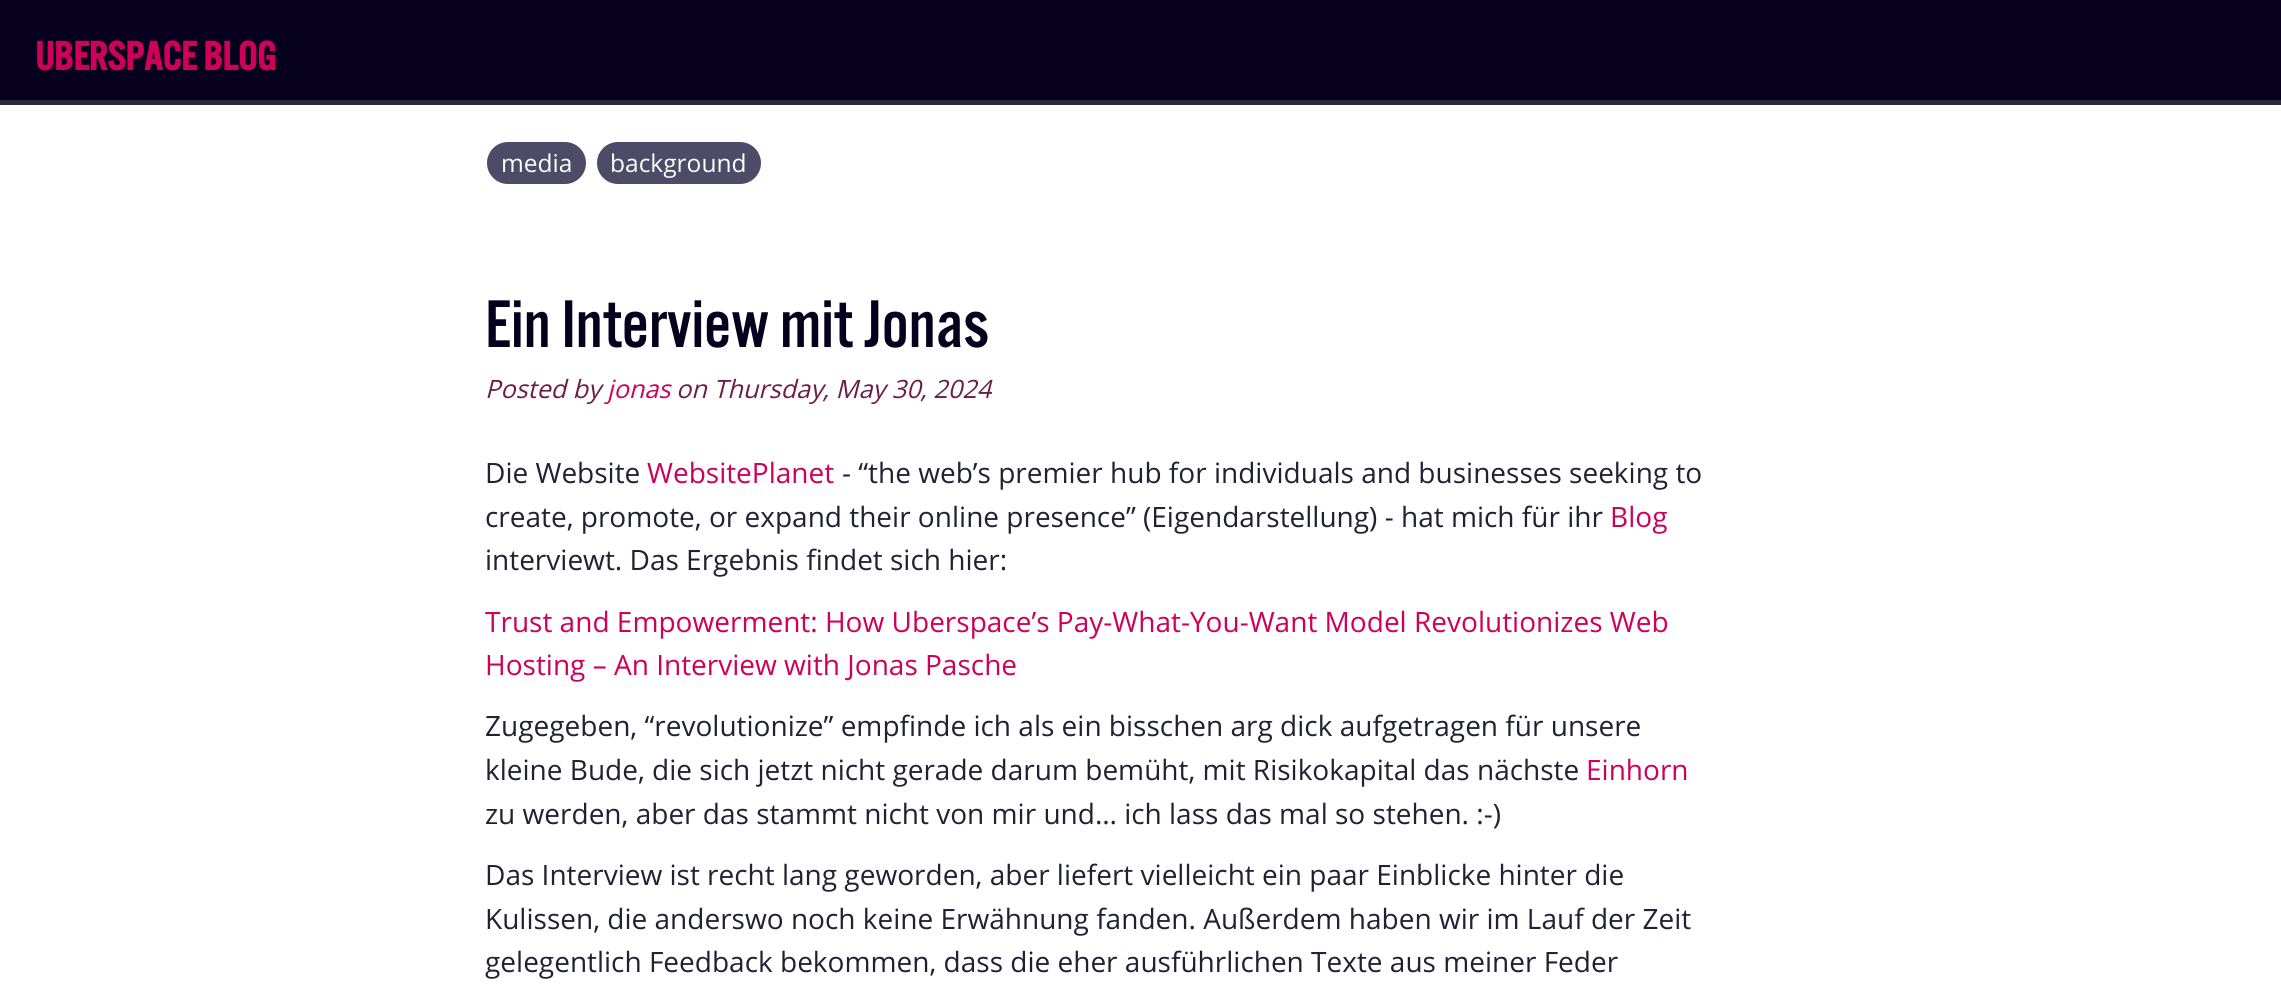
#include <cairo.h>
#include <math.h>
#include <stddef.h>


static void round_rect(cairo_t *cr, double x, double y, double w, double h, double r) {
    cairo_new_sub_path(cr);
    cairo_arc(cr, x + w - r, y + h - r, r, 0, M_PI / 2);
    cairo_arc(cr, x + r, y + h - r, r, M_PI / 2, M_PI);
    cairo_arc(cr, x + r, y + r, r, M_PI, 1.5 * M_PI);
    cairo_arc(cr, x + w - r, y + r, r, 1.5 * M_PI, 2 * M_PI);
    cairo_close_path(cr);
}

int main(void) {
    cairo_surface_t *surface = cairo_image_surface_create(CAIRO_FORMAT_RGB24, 2281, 994);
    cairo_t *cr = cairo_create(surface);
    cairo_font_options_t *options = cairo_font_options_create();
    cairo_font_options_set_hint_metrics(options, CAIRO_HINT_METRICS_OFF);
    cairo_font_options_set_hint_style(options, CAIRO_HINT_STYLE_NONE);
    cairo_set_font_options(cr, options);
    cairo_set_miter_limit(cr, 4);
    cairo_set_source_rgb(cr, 1, 1, 1);
    cairo_paint(cr);
    cairo_set_source_rgb(cr, 0.024, 0, 0.118);
    cairo_rectangle(cr, 0, 0, 2281, 100);
    cairo_fill(cr);
    cairo_select_font_face(cr, "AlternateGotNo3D", CAIRO_FONT_SLANT_NORMAL, CAIRO_FONT_WEIGHT_BOLD);
    cairo_set_font_size(cr, 42);
    cairo_set_source_rgb(cr, 0.808, 0, 0.345);
    cairo_move_to(cr, 35, 70);
    cairo_show_text(cr, "UBERSPACE BLOG");
    cairo_set_source_rgb(cr, 0.169, 0.169, 0.227);
    cairo_rectangle(cr, 0, 100, 2281, 5);
    cairo_fill(cr);
    cairo_set_source_rgb(cr, 0.302, 0.298, 0.408);
    round_rect(cr, 487, 142, 99, 42, 21);
    cairo_fill(cr);
    cairo_select_font_face(cr, "Open Sans", CAIRO_FONT_SLANT_NORMAL, CAIRO_FONT_WEIGHT_NORMAL);
    cairo_set_font_size(cr, 24.5);
    cairo_set_source_rgb(cr, 1, 1, 1);
    cairo_move_to(cr, 501, 172);
    cairo_show_text(cr, "media");
    cairo_set_source_rgb(cr, 0.302, 0.298, 0.408);
    round_rect(cr, 597, 142, 164, 42, 21);
    cairo_fill(cr);
    cairo_set_source_rgb(cr, 1, 1, 1);
    cairo_move_to(cr, 610, 172);
    cairo_show_text(cr, "background");
    cairo_select_font_face(cr, "AlternateGotNo3D", CAIRO_FONT_SLANT_NORMAL, CAIRO_FONT_WEIGHT_NORMAL);
    cairo_set_font_size(cr, 70);
    cairo_set_source_rgb(cr, 0.024, 0, 0.118);
    cairo_move_to(cr, 485, 347);
    cairo_show_text(cr, "Ein Interview mit Jonas");
    cairo_select_font_face(cr, "Open Sans", CAIRO_FONT_SLANT_ITALIC, CAIRO_FONT_WEIGHT_NORMAL);
    cairo_set_font_size(cr, 25.25);
    cairo_set_source_rgb(cr, 0.424, 0.114, 0.271);
    cairo_move_to(cr, 485, 398);
    cairo_show_text(cr, "Posted by");
    cairo_set_source_rgb(cr, 0.808, 0, 0.345);
    cairo_move_to(cr, 607, 398);
    cairo_show_text(cr, "jonas");
    cairo_set_source_rgb(cr, 0.424, 0.114, 0.271);
    cairo_move_to(cr, 676, 398);
    cairo_show_text(cr, "on Thursday, May 30, 2024");
    cairo_select_font_face(cr, "Open Sans", CAIRO_FONT_SLANT_NORMAL, CAIRO_FONT_WEIGHT_NORMAL);
    cairo_set_font_size(cr, 28);
    cairo_set_source_rgb(cr, 0.129, 0.129, 0.204);
    cairo_move_to(cr, 485, 483);
    cairo_show_text(cr, "Die Website");
    cairo_set_source_rgb(cr, 0.808, 0, 0.345);
    cairo_move_to(cr, 647, 483);
    cairo_show_text(cr, "WebsitePlanet");
    cairo_set_source_rgb(cr, 0.129, 0.129, 0.204);
    cairo_move_to(cr, 842, 483);
    cairo_show_text(cr, "- “the web’s premier hub for individuals and businesses seeking to");
    cairo_move_to(cr, 485, 527);
    cairo_show_text(cr, "create, promote, or expand their online presence” (Eigendarstellung) - hat mich für ihr");
    cairo_set_source_rgb(cr, 0.808, 0, 0.345);
    cairo_move_to(cr, 1610, 527);
    cairo_show_text(cr, "Blog");
    cairo_set_source_rgb(cr, 0.129, 0.129, 0.204);
    cairo_move_to(cr, 485, 570);
    cairo_show_text(cr, "interviewt. Das Ergebnis findet sich hier:");
    cairo_set_source_rgb(cr, 0.808, 0, 0.345);
    cairo_move_to(cr, 485, 632);
    cairo_show_text(cr, "Trust and Empowerment: How Uberspace’s Pay-What-You-Want Model Revolutionizes Web");
    cairo_move_to(cr, 485, 675);
    cairo_show_text(cr, "Hosting – An Interview with Jonas Pasche");
    cairo_set_source_rgb(cr, 0.129, 0.129, 0.204);
    cairo_move_to(cr, 485, 736);
    cairo_show_text(cr, "Zugegeben, “revolutionize” empfinde ich als ein bisschen arg dick aufgetragen für unsere");
    cairo_move_to(cr, 485, 780);
    cairo_show_text(cr, "kleine Bude, die sich jetzt nicht gerade darum bemüht, mit Risikokapital das nächste");
    cairo_set_source_rgb(cr, 0.808, 0, 0.345);
    cairo_move_to(cr, 1586, 780);
    cairo_show_text(cr, "Einhorn");
    cairo_set_source_rgb(cr, 0.129, 0.129, 0.204);
    cairo_move_to(cr, 485, 824);
    cairo_show_text(cr, "zu werden, aber das stammt nicht von mir und… ich lass das mal so stehen. :-)");
    cairo_move_to(cr, 485, 885);
    cairo_show_text(cr, "Das Interview ist recht lang geworden, aber liefert vielleicht ein paar Einblicke hinter die");
    cairo_move_to(cr, 485, 929);
    cairo_show_text(cr, "Kulissen, die anderswo noch keine Erwähnung fanden. Außerdem haben wir im Lauf der Zeit");
    cairo_move_to(cr, 485, 972);
    cairo_show_text(cr, "gelegentlich Feedback bekommen, dass die eher ausführlichen Texte aus meiner Feder");
    cairo_surface_write_to_png(surface, "page.png");
    cairo_font_options_destroy(options);
    cairo_destroy(cr);
    cairo_surface_destroy(surface);
    return 0;
}
